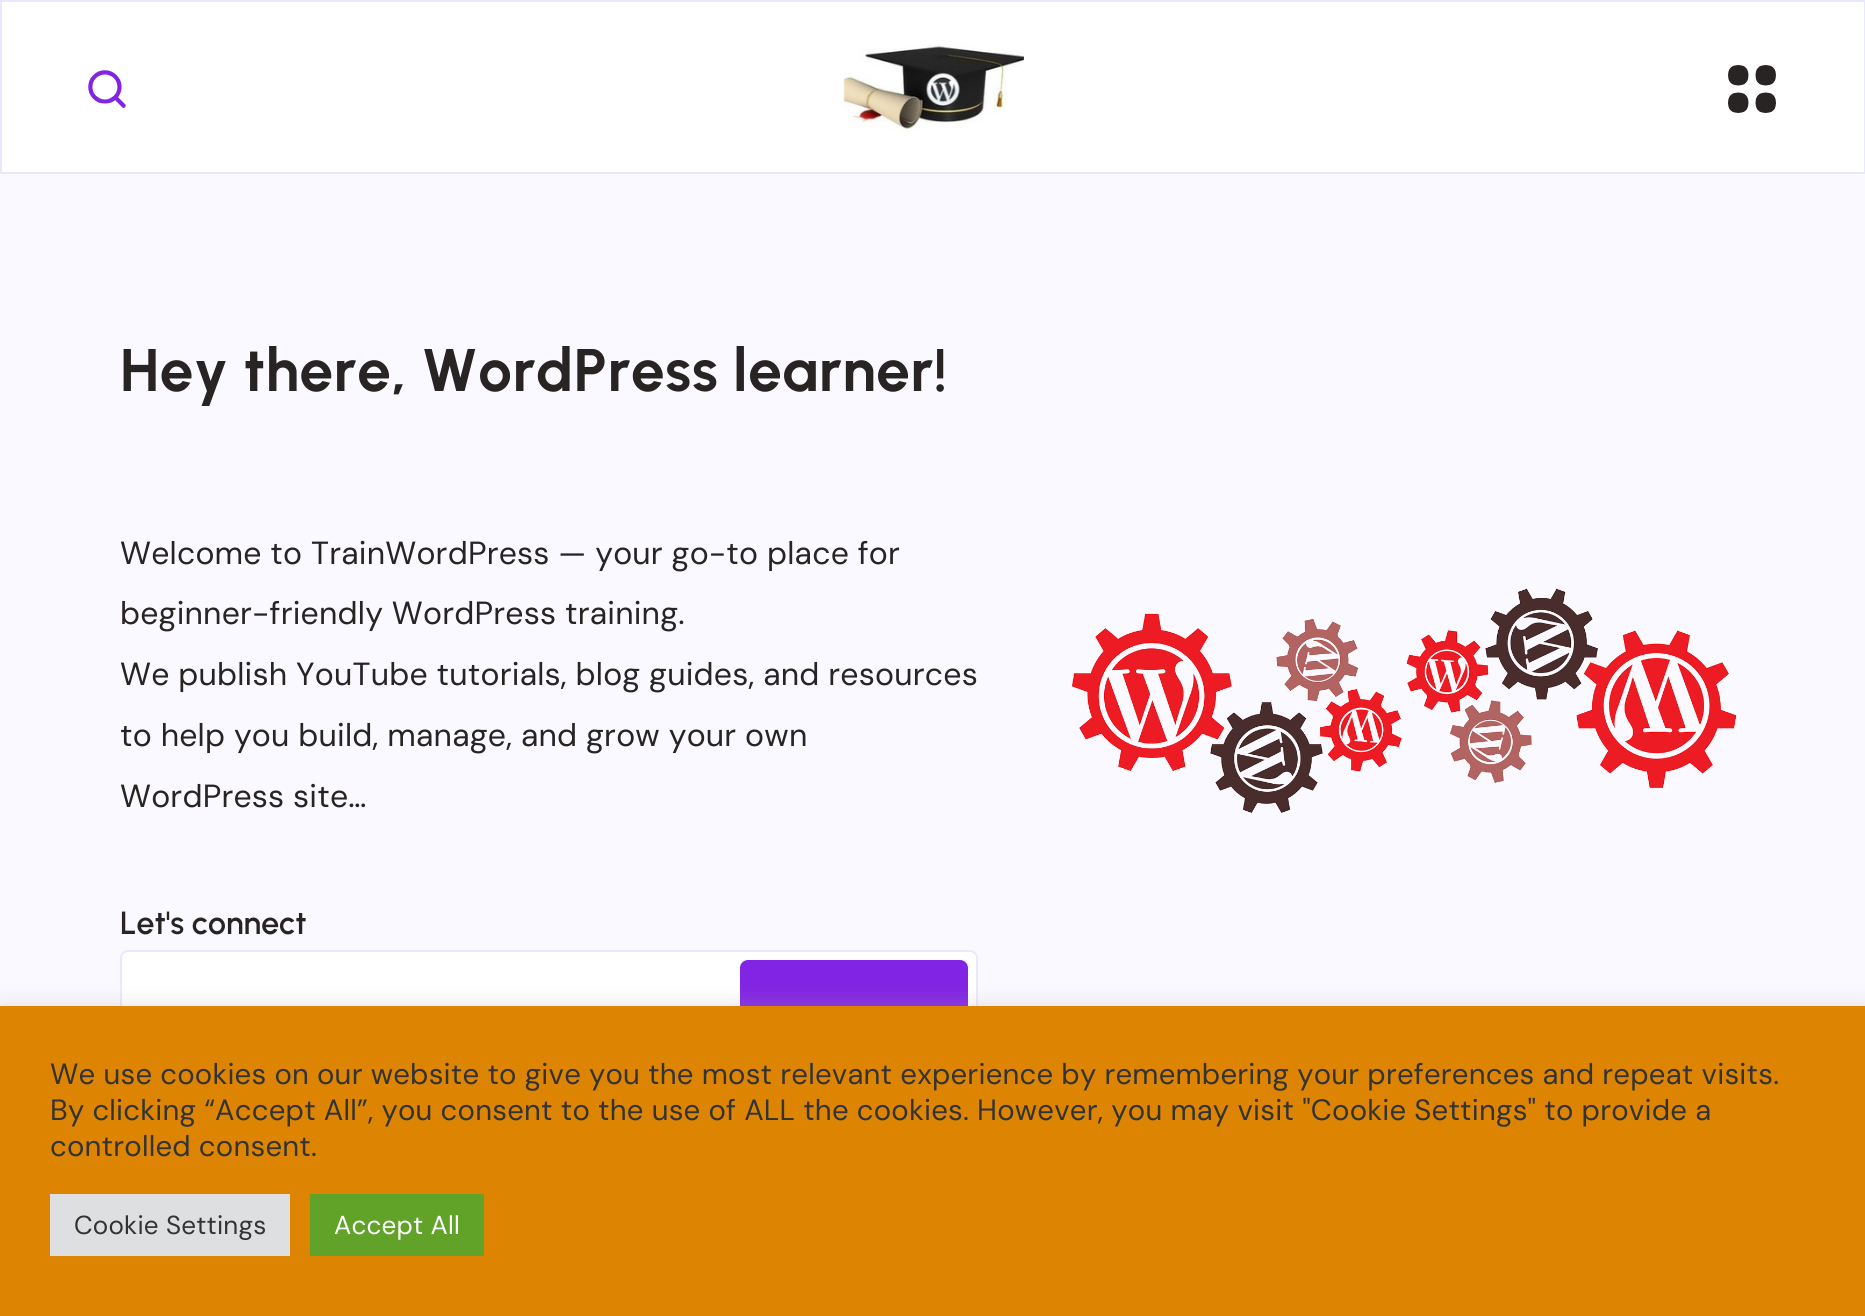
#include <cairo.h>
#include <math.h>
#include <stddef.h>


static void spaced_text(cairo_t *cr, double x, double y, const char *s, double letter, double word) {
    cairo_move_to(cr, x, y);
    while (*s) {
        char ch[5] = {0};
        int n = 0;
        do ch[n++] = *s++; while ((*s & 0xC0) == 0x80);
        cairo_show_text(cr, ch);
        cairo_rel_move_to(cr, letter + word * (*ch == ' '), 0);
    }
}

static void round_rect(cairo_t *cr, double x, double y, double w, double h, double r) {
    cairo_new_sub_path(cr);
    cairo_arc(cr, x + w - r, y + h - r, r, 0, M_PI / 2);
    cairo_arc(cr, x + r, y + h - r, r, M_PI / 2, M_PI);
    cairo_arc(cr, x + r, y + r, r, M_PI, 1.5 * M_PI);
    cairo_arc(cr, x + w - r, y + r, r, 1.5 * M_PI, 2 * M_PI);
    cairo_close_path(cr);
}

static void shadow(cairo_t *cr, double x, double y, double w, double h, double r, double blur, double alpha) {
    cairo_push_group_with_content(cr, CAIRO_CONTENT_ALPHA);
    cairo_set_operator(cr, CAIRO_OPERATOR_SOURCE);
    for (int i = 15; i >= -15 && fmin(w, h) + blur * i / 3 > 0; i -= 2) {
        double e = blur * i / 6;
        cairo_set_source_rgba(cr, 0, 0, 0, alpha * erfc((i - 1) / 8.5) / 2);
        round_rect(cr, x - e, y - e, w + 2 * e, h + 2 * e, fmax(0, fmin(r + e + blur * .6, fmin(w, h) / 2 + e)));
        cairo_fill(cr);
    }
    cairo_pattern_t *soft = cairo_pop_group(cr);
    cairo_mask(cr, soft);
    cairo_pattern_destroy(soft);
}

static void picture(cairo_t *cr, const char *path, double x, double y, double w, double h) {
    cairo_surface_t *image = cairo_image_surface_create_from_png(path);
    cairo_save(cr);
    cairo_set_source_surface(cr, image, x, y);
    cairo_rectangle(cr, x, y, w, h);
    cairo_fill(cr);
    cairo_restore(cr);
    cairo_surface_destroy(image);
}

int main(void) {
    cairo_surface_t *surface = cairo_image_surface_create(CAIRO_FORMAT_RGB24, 1865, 1316);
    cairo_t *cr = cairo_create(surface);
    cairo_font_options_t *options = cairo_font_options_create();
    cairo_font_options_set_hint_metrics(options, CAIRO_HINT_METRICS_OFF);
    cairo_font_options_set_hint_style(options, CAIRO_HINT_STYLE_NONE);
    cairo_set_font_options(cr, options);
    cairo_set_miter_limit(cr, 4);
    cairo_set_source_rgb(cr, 0.98, 0.973, 1);
    cairo_paint(cr);
    cairo_set_source_rgb(cr, 1, 1, 1);
    cairo_rectangle(cr, 1, 1, 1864, 172);
    cairo_fill_preserve(cr);
    cairo_set_source_rgb(cr, 0.914, 0.91, 1);
    cairo_stroke(cr);
    picture(cr, "img1.png", 88, 70, 38, 38);
    picture(cr, "img2.png", 843, 44, 181, 88);
    picture(cr, "img3.png", 1728, 65, 48, 48);
    cairo_select_font_face(cr, "Urbanist", CAIRO_FONT_SLANT_NORMAL, CAIRO_FONT_WEIGHT_BOLD);
    cairo_set_font_size(cr, 60);
    cairo_set_source_rgb(cr, 0.157, 0.141, 0.141);
    spaced_text(cr, 120, 391, "Hey there, WordPress learner!", 0.5, 0);
    cairo_select_font_face(cr, "DM Sans", CAIRO_FONT_SLANT_NORMAL, CAIRO_FONT_WEIGHT_NORMAL);
    cairo_set_font_size(cr, 32);
    spaced_text(cr, 120, 564, "Welcome to TrainWordPress — your go-to place for", 0.2, 0);
    spaced_text(cr, 120, 624, "beginner-friendly WordPress training.", 0.2, 0);
    spaced_text(cr, 120, 685, "We publish YouTube tutorials, blog guides, and resources", 0.2, 0);
    spaced_text(cr, 120, 746, "to help you build, manage, and grow your own", 0.2, 0);
    spaced_text(cr, 120, 807, "WordPress site…", 0.2, 0);
    cairo_select_font_face(cr, "Urbanist SemiBold", CAIRO_FONT_SLANT_NORMAL, CAIRO_FONT_WEIGHT_NORMAL);
    cairo_move_to(cr, 120, 934);
    cairo_show_text(cr, "Let's connect");
    cairo_set_source_rgb(cr, 1, 1, 1);
    round_rect(cr, 121, 951, 856, 106, 7);
    cairo_fill_preserve(cr);
    cairo_set_source_rgb(cr, 0.914, 0.91, 1);
    cairo_stroke(cr);
    cairo_set_source_rgb(cr, 0.51, 0.141, 0.89);
    round_rect(cr, 740, 960, 228, 88, 8);
    cairo_fill(cr);
    picture(cr, "img4.png", 1071, 588, 666, 226);
    cairo_set_source_rgb(cr, 0.675, 0.671, 0.671);
    shadow(cr, 0, 1004, 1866, 310, 0, 10, 0.3);
    cairo_set_source_rgb(cr, 0.867, 0.522, 0.008);
    cairo_rectangle(cr, 0, 1006, 1865, 310);
    cairo_fill(cr);
    cairo_select_font_face(cr, "DM Sans", CAIRO_FONT_SLANT_NORMAL, CAIRO_FONT_WEIGHT_NORMAL);
    cairo_set_font_size(cr, 29.33);
    cairo_set_source_rgb(cr, 0.2, 0.2, 0.2);
    spaced_text(cr, 50, 1084, "We use cookies on our website to give you the most relevant experience by remembering your preferences and repeat visits.", 0.2, 0);
    spaced_text(cr, 50, 1120, "By clicking “Accept All”, you consent to the use of ALL the cookies. However, you may visit \"Cookie Settings\" to provide a", 0.2, 0);
    spaced_text(cr, 50, 1156, "controlled consent.", 0.2, 0);
    cairo_set_source_rgb(cr, 0.871, 0.875, 0.878);
    cairo_rectangle(cr, 50, 1194, 240, 62);
    cairo_fill(cr);
    cairo_set_font_size(cr, 26);
    cairo_set_source_rgb(cr, 0.2, 0.2, 0.2);
    spaced_text(cr, 74, 1234, "Cookie Settings", 0.2, 0);
    cairo_set_source_rgb(cr, 0.38, 0.635, 0.161);
    cairo_rectangle(cr, 310, 1194, 174, 62);
    cairo_fill(cr);
    cairo_set_source_rgb(cr, 1, 1, 1);
    spaced_text(cr, 334, 1234, "Accept All", 0.2, 0);
    cairo_surface_write_to_png(surface, "page.png");
    cairo_font_options_destroy(options);
    cairo_destroy(cr);
    cairo_surface_destroy(surface);
    return 0;
}
